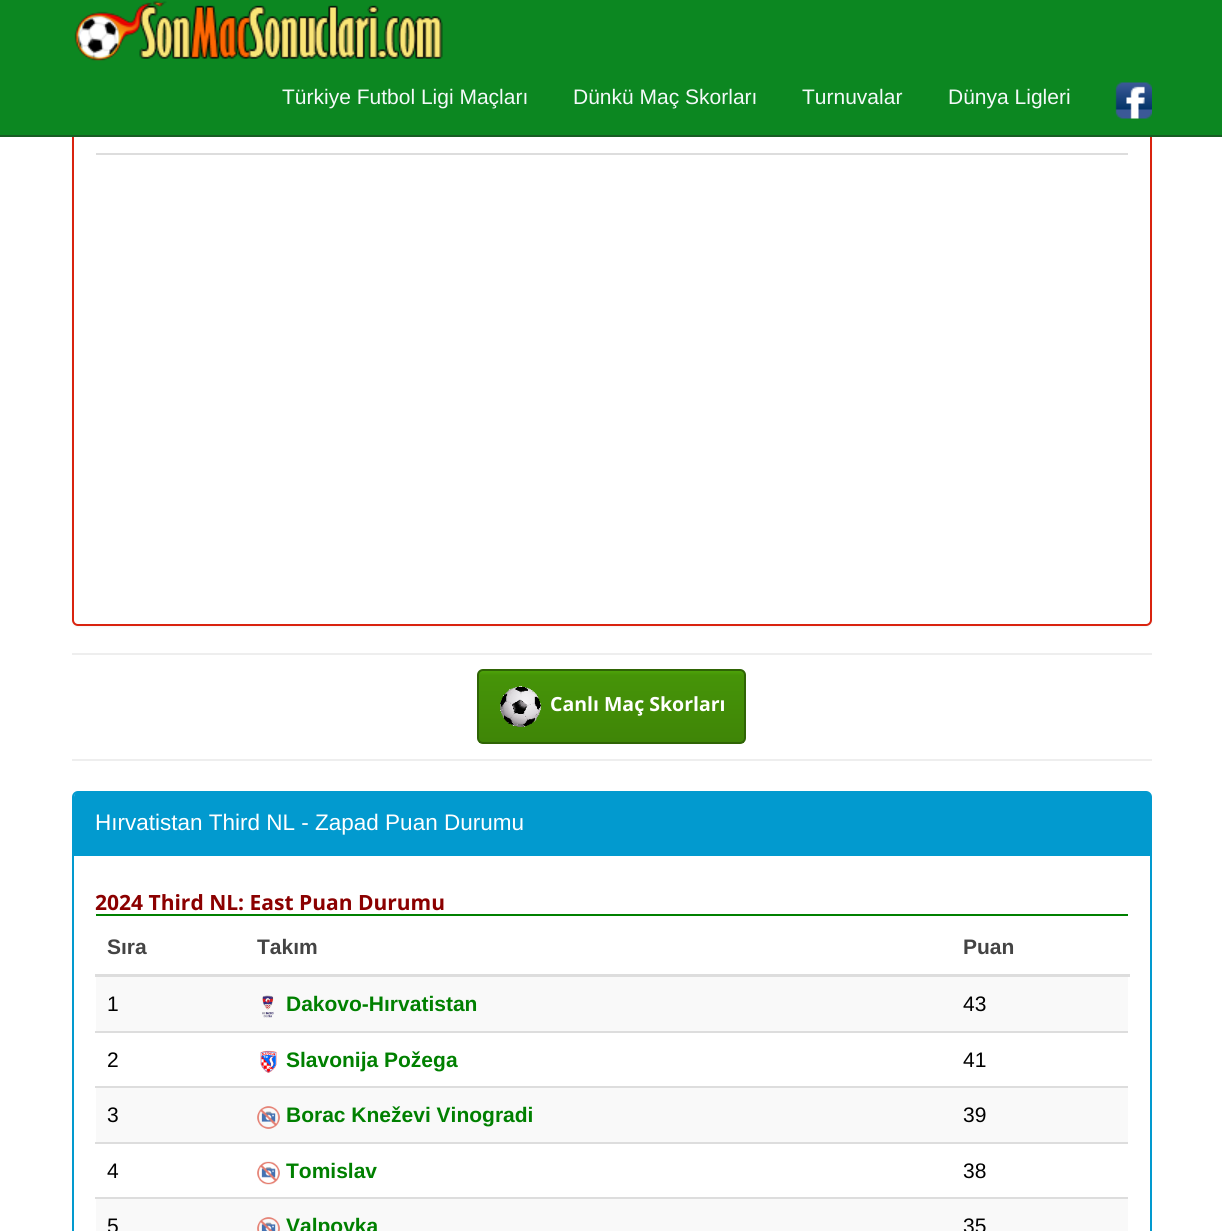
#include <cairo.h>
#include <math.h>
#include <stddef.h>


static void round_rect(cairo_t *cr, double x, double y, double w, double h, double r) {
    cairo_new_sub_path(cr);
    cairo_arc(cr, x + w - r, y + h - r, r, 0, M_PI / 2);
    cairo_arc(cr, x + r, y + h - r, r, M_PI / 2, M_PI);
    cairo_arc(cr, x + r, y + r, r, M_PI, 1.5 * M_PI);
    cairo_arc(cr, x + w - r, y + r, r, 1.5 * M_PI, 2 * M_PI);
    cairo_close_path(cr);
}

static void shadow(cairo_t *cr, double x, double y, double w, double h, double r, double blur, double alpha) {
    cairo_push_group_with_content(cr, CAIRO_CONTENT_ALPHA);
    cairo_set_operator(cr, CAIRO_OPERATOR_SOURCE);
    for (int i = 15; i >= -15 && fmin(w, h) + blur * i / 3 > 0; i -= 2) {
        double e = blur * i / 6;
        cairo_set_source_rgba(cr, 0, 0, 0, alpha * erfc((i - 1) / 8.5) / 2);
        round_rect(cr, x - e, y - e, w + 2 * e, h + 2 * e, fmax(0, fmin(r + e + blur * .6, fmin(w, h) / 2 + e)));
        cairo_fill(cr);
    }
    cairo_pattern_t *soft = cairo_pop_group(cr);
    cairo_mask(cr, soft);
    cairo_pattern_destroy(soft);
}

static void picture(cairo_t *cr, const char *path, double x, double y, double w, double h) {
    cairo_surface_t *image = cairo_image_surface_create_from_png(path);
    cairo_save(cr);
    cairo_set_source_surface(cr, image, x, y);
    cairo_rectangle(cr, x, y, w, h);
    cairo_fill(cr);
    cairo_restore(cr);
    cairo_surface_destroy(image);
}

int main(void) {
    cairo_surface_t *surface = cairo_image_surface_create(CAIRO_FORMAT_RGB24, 1222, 1231);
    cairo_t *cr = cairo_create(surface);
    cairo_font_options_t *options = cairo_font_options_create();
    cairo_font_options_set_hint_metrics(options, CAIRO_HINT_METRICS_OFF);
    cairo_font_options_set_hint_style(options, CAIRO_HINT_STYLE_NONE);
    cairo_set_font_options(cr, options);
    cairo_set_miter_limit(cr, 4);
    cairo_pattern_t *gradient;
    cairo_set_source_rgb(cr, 1, 1, 1);
    cairo_paint(cr);
    cairo_set_source_rgb(cr, 0, 0, 0);
    shadow(cr, 72, -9, 1080, 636, 6, 1, 0.05);
    cairo_set_source_rgb(cr, 1, 1, 1);
    round_rect(cr, 73, -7, 1078, 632, 5);
    cairo_fill_preserve(cr);
    cairo_set_source_rgb(cr, 0.851, 0.137, 0.059);
    cairo_stroke(cr);
    cairo_set_source_rgb(cr, 0.047, 0.529, 0.129);
    cairo_rectangle(cr, 0, 0, 1222, 135);
    cairo_fill(cr);
    cairo_set_source_rgb(cr, 0.09, 0.361, 0.137);
    cairo_rectangle(cr, 0, 135, 1222, 2);
    cairo_fill(cr);
    picture(cr, "img1.png", 74, 1, 369, 60);
    cairo_select_font_face(cr, "Liberation Sans", CAIRO_FONT_SLANT_NORMAL, CAIRO_FONT_WEIGHT_NORMAL);
    cairo_set_font_size(cr, 21);
    cairo_set_source_rgb(cr, 0.957, 0.973, 0.976);
    cairo_move_to(cr, 282, 104);
    cairo_show_text(cr, "Türkiye Futbol Ligi Maçları");
    cairo_move_to(cr, 573, 104);
    cairo_show_text(cr, "Dünkü Maç Skorları");
    cairo_move_to(cr, 802, 104);
    cairo_show_text(cr, "Turnuvalar");
    cairo_move_to(cr, 948, 104);
    cairo_show_text(cr, "Dünya Ligleri");
    picture(cr, "img2.png", 1115, 82, 37, 37);
    cairo_set_source_rgb(cr, 0.867, 0.867, 0.867);
    cairo_rectangle(cr, 96, 153, 1032, 2);
    cairo_fill(cr);
    cairo_set_source_rgb(cr, 0.933, 0.933, 0.933);
    cairo_rectangle(cr, 72, 653, 1080, 2);
    cairo_fill(cr);
    cairo_rectangle(cr, 72, 759, 1080, 2);
    cairo_fill(cr);
    gradient = cairo_pattern_create_linear(611, 671, 611, 743);
    cairo_pattern_add_color_stop_rgba(gradient, 0, 0.302, 0.639, 0.035, 1);
    cairo_pattern_add_color_stop_rgba(gradient, 0.06, 0.275, 0.58, 0.031, 1);
    cairo_pattern_add_color_stop_rgba(gradient, 1, 0.247, 0.522, 0.027, 1);
    cairo_set_source(cr, gradient);
    cairo_pattern_destroy(gradient);
    cairo_rectangle(cr, 479, 671, 265, 72);
    cairo_fill(cr);
    round_rect(cr, 478, 670, 267, 73, 5);
    cairo_set_source_rgb(cr, 0.184, 0.392, 0.02);
    cairo_stroke(cr);
    picture(cr, "img3.png", 500, 686, 41, 41);
    cairo_select_font_face(cr, "Open Sans", CAIRO_FONT_SLANT_NORMAL, CAIRO_FONT_WEIGHT_BOLD);
    cairo_set_font_size(cr, 19.5);
    cairo_set_source_rgb(cr, 1, 1, 1);
    cairo_move_to(cr, 550, 711);
    cairo_show_text(cr, "Canlı Maç Skorları");
    round_rect(cr, 73, 792, 1078, 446, 5);
    cairo_set_source_rgb(cr, 0.008, 0.604, 0.812);
    cairo_stroke(cr);
    cairo_new_path(cr);
    cairo_move_to(cr, 79, 792);
    cairo_line_to(cr, 1146, 792);
    cairo_curve_to(cr, 1149, 792, 1151, 794, 1151, 797);
    cairo_line_to(cr, 1151, 855);
    cairo_line_to(cr, 74, 855);
    cairo_line_to(cr, 74, 797);
    cairo_curve_to(cr, 74, 794, 76, 792, 79, 792);
    cairo_close_path(cr);
    cairo_fill(cr);
    cairo_rectangle(cr, 74, 855, 1077, 1);
    cairo_fill(cr);
    cairo_select_font_face(cr, "Liberation Sans", CAIRO_FONT_SLANT_NORMAL, CAIRO_FONT_WEIGHT_NORMAL);
    cairo_set_font_size(cr, 22.5);
    cairo_set_source_rgb(cr, 1, 1, 1);
    cairo_move_to(cr, 95, 830);
    cairo_show_text(cr, "Hırvatistan Third NL - Zapad Puan Durumu");
    cairo_set_source_rgb(cr, 0, 0.502, 0);
    cairo_rectangle(cr, 96, 914, 1032, 2);
    cairo_fill(cr);
    cairo_select_font_face(cr, "Open Sans", CAIRO_FONT_SLANT_NORMAL, CAIRO_FONT_WEIGHT_BOLD);
    cairo_set_font_size(cr, 21);
    cairo_set_source_rgb(cr, 0.545, 0, 0);
    cairo_move_to(cr, 95, 910);
    cairo_show_text(cr, "2024 Third NL: East Puan Durumu");
    cairo_select_font_face(cr, "Liberation Sans", CAIRO_FONT_SLANT_NORMAL, CAIRO_FONT_WEIGHT_BOLD);
    cairo_set_source_rgb(cr, 0.267, 0.267, 0.267);
    cairo_move_to(cr, 107, 954);
    cairo_show_text(cr, "Sıra");
    cairo_move_to(cr, 257, 954);
    cairo_show_text(cr, "Takım");
    cairo_set_source_rgb(cr, 0.867, 0.867, 0.867);
    cairo_rectangle(cr, 95, 974, 1035, 3);
    cairo_fill(cr);
    cairo_set_source_rgb(cr, 0.267, 0.267, 0.267);
    cairo_move_to(cr, 963, 954);
    cairo_show_text(cr, "Puan");
    cairo_set_source_rgb(cr, 0.976, 0.976, 0.976);
    cairo_rectangle(cr, 96, 977, 1032, 54);
    cairo_fill(cr);
    cairo_select_font_face(cr, "Liberation Sans", CAIRO_FONT_SLANT_NORMAL, CAIRO_FONT_WEIGHT_NORMAL);
    cairo_set_source_rgb(cr, 0, 0, 0);
    cairo_move_to(cr, 107, 1011);
    cairo_show_text(cr, "1");
    picture(cr, "img4.png", 262, 995, 12, 23);
    cairo_select_font_face(cr, "Liberation Sans", CAIRO_FONT_SLANT_NORMAL, CAIRO_FONT_WEIGHT_BOLD);
    cairo_set_source_rgb(cr, 0, 0.502, 0);
    cairo_move_to(cr, 286, 1011);
    cairo_show_text(cr, "Dakovo-Hırvatistan");
    cairo_select_font_face(cr, "Liberation Sans", CAIRO_FONT_SLANT_NORMAL, CAIRO_FONT_WEIGHT_NORMAL);
    cairo_set_source_rgb(cr, 0, 0, 0);
    cairo_move_to(cr, 963, 1011);
    cairo_show_text(cr, "43");
    cairo_move_to(cr, 107, 1067);
    cairo_show_text(cr, "2");
    picture(cr, "img5.png", 260, 1050, 17, 23);
    cairo_select_font_face(cr, "Liberation Sans", CAIRO_FONT_SLANT_NORMAL, CAIRO_FONT_WEIGHT_BOLD);
    cairo_set_source_rgb(cr, 0, 0.502, 0);
    cairo_move_to(cr, 286, 1067);
    cairo_show_text(cr, "Slavonija Požega");
    cairo_set_source_rgb(cr, 0.867, 0.867, 0.867);
    cairo_rectangle(cr, 95, 1031, 1033, 2);
    cairo_fill(cr);
    cairo_select_font_face(cr, "Liberation Sans", CAIRO_FONT_SLANT_NORMAL, CAIRO_FONT_WEIGHT_NORMAL);
    cairo_set_source_rgb(cr, 0, 0, 0);
    cairo_move_to(cr, 963, 1067);
    cairo_show_text(cr, "41");
    cairo_set_source_rgb(cr, 0.976, 0.976, 0.976);
    cairo_rectangle(cr, 96, 1088, 1032, 54);
    cairo_fill(cr);
    cairo_set_source_rgb(cr, 0, 0, 0);
    cairo_move_to(cr, 107, 1122);
    cairo_show_text(cr, "3");
    picture(cr, "img6.png", 257, 1106, 23, 23);
    cairo_select_font_face(cr, "Liberation Sans", CAIRO_FONT_SLANT_NORMAL, CAIRO_FONT_WEIGHT_BOLD);
    cairo_set_source_rgb(cr, 0, 0.502, 0);
    cairo_move_to(cr, 286, 1122);
    cairo_show_text(cr, "Borac Kneževi Vinogradi");
    cairo_set_source_rgb(cr, 0.867, 0.867, 0.867);
    cairo_rectangle(cr, 95, 1086, 1033, 2);
    cairo_fill(cr);
    cairo_select_font_face(cr, "Liberation Sans", CAIRO_FONT_SLANT_NORMAL, CAIRO_FONT_WEIGHT_NORMAL);
    cairo_set_source_rgb(cr, 0, 0, 0);
    cairo_move_to(cr, 963, 1122);
    cairo_show_text(cr, "39");
    cairo_move_to(cr, 107, 1178);
    cairo_show_text(cr, "4");
    picture(cr, "img7.png", 257, 1161, 23, 24);
    cairo_select_font_face(cr, "Liberation Sans", CAIRO_FONT_SLANT_NORMAL, CAIRO_FONT_WEIGHT_BOLD);
    cairo_set_source_rgb(cr, 0, 0.502, 0);
    cairo_move_to(cr, 286, 1178);
    cairo_show_text(cr, "Tomislav");
    cairo_set_source_rgb(cr, 0.867, 0.867, 0.867);
    cairo_rectangle(cr, 95, 1142, 1033, 2);
    cairo_fill(cr);
    cairo_select_font_face(cr, "Liberation Sans", CAIRO_FONT_SLANT_NORMAL, CAIRO_FONT_WEIGHT_NORMAL);
    cairo_set_source_rgb(cr, 0, 0, 0);
    cairo_move_to(cr, 963, 1178);
    cairo_show_text(cr, "38");
    cairo_set_source_rgb(cr, 0.976, 0.976, 0.976);
    cairo_rectangle(cr, 96, 1199, 1032, 32);
    cairo_fill(cr);
    cairo_set_source_rgb(cr, 0, 0, 0);
    cairo_move_to(cr, 107, 1233);
    cairo_show_text(cr, "5");
    picture(cr, "img8.png", 257, 1217, 23, 14);
    cairo_select_font_face(cr, "Liberation Sans", CAIRO_FONT_SLANT_NORMAL, CAIRO_FONT_WEIGHT_BOLD);
    cairo_set_source_rgb(cr, 0, 0.502, 0);
    cairo_move_to(cr, 286, 1233);
    cairo_show_text(cr, "Valpovka");
    cairo_set_source_rgb(cr, 0.867, 0.867, 0.867);
    cairo_rectangle(cr, 95, 1197, 1033, 2);
    cairo_fill(cr);
    cairo_select_font_face(cr, "Liberation Sans", CAIRO_FONT_SLANT_NORMAL, CAIRO_FONT_WEIGHT_NORMAL);
    cairo_set_source_rgb(cr, 0, 0, 0);
    cairo_move_to(cr, 963, 1233);
    cairo_show_text(cr, "35");
    cairo_surface_write_to_png(surface, "page.png");
    cairo_font_options_destroy(options);
    cairo_destroy(cr);
    cairo_surface_destroy(surface);
    return 0;
}
